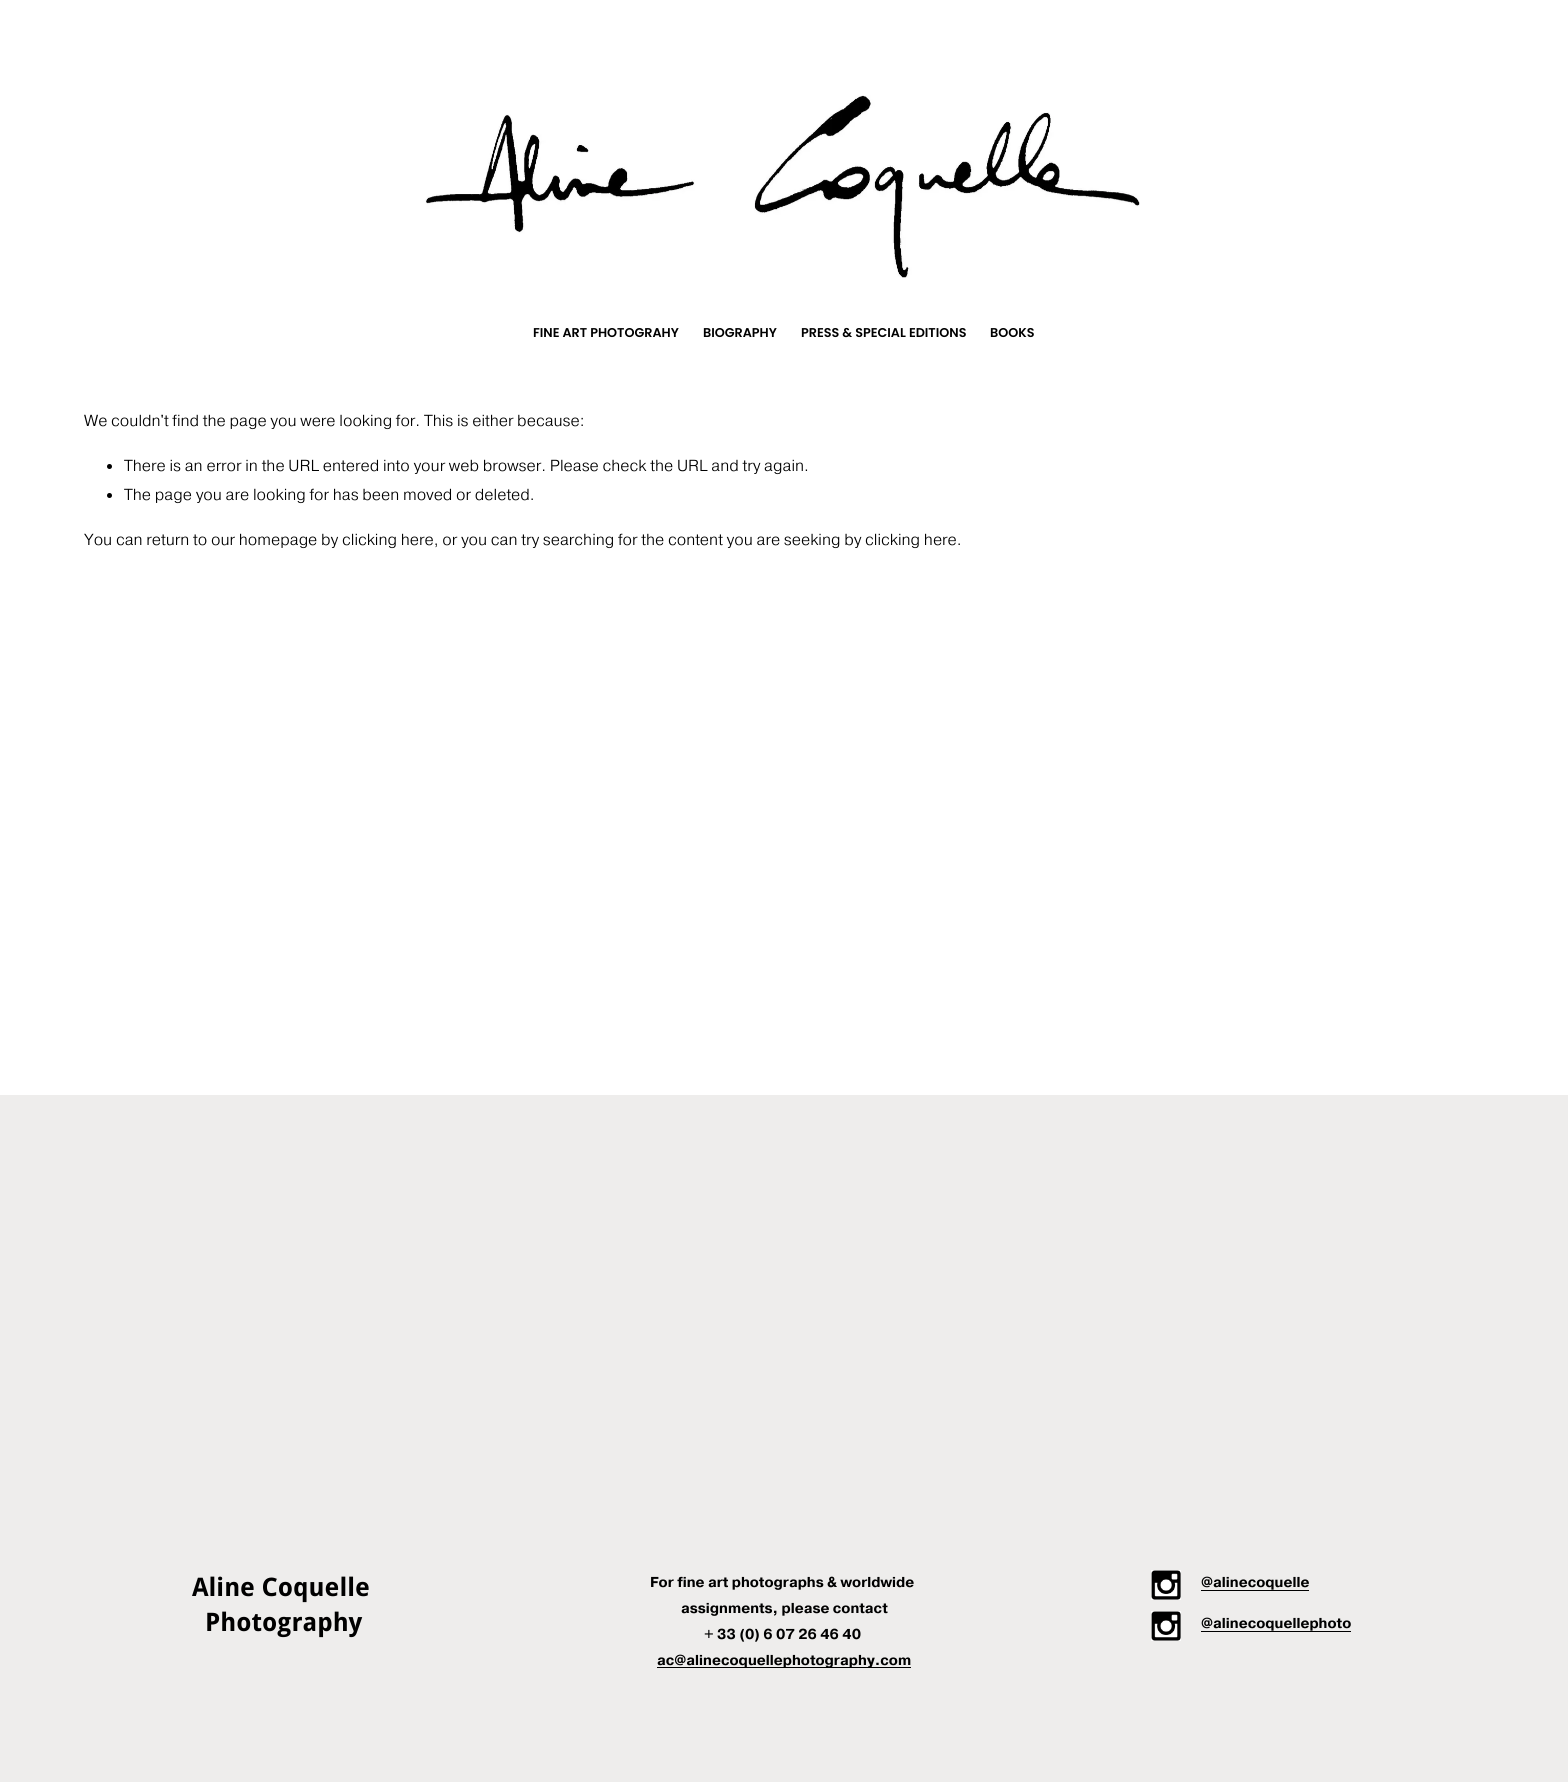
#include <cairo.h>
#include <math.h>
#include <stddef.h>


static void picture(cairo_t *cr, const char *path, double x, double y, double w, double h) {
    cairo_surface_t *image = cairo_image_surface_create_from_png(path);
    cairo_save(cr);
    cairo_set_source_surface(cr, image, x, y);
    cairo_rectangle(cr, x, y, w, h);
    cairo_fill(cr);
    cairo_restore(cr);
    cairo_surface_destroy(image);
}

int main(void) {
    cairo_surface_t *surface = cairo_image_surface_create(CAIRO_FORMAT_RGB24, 1568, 1782);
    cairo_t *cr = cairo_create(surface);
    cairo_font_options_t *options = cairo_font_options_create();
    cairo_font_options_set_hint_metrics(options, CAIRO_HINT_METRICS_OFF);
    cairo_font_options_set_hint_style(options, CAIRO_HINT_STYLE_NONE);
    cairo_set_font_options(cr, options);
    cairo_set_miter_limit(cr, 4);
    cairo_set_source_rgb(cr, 1, 1, 1);
    cairo_paint(cr);
    picture(cr, "img1.png", 425, 95, 715, 183);
    cairo_select_font_face(cr, "Poppins SemiBold", CAIRO_FONT_SLANT_NORMAL, CAIRO_FONT_WEIGHT_NORMAL);
    cairo_set_font_size(cr, 12.75);
    cairo_set_source_rgb(cr, 0, 0, 0);
    cairo_move_to(cr, 533, 337);
    cairo_show_text(cr, "FINE ART PHOTOGRAHY");
    cairo_move_to(cr, 703, 337);
    cairo_show_text(cr, "BIOGRAPHY");
    cairo_move_to(cr, 801, 337);
    cairo_show_text(cr, "PRESS & SPECIAL EDITIONS");
    cairo_move_to(cr, 990, 337);
    cairo_show_text(cr, "BOOKS");
    cairo_select_font_face(cr, "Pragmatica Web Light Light", CAIRO_FONT_SLANT_NORMAL, CAIRO_FONT_WEIGHT_NORMAL);
    cairo_set_font_size(cr, 16);
    cairo_move_to(cr, 84, 426);
    cairo_show_text(cr, "We couldn't find the page you were looking for. This is either because:");
    cairo_new_path(cr);
    cairo_arc(cr, 109.5, 466.5, 2.5, 0, 2 * M_PI);
    cairo_fill(cr);
    cairo_move_to(cr, 124, 471);
    cairo_show_text(cr, "There is an error in the URL entered into your web browser. Please check the URL and try again.");
    cairo_new_path(cr);
    cairo_arc(cr, 109.5, 495.5, 2.5, 0, 2 * M_PI);
    cairo_fill(cr);
    cairo_move_to(cr, 124, 500);
    cairo_show_text(cr, "The page you are looking for has been moved or deleted.");
    cairo_move_to(cr, 84, 545);
    cairo_show_text(cr, "You can return to our homepage by clicking here, or you can try searching for the content you are seeking by clicking here.");
    cairo_set_source_rgb(cr, 0.933, 0.929, 0.922);
    cairo_rectangle(cr, 0, 1095, 1568, 687);
    cairo_fill(cr);
    cairo_select_font_face(cr, "Droid Sans", CAIRO_FONT_SLANT_NORMAL, CAIRO_FONT_WEIGHT_BOLD);
    cairo_set_font_size(cr, 25.5);
    cairo_set_source_rgb(cr, 0, 0, 0);
    cairo_move_to(cr, 192, 1596);
    cairo_show_text(cr, "Aline Coquelle");
    cairo_move_to(cr, 205, 1631);
    cairo_show_text(cr, "Photography");
    cairo_select_font_face(cr, "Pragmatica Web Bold", CAIRO_FONT_SLANT_NORMAL, CAIRO_FONT_WEIGHT_BOLD);
    cairo_set_font_size(cr, 14.4);
    cairo_move_to(cr, 650, 1587);
    cairo_show_text(cr, "For fine art photographs & worldwide");
    cairo_move_to(cr, 681, 1613);
    cairo_show_text(cr, "assignments, please contact");
    cairo_move_to(cr, 704, 1639);
    cairo_show_text(cr, "+ 33 (0) 6 07 26 46 40");
    cairo_rectangle(cr, 657, 1667, 254, 1);
    cairo_fill(cr);
    cairo_move_to(cr, 657, 1665);
    cairo_show_text(cr, "ac@alinecoquellephotography.com");
    picture(cr, "img2.png", 1151, 1570, 30, 30);
    cairo_move_to(cr, 1201, 1587);
    cairo_show_text(cr, "@alinecoquelle");
    cairo_rectangle(cr, 1201, 1590, 108, 1);
    cairo_fill(cr);
    picture(cr, "img2.png", 1151, 1611, 30, 30);
    cairo_move_to(cr, 1201, 1628);
    cairo_show_text(cr, "@alinecoquellephoto");
    cairo_rectangle(cr, 1201, 1631, 150, 1);
    cairo_fill(cr);
    cairo_surface_write_to_png(surface, "page.png");
    cairo_font_options_destroy(options);
    cairo_destroy(cr);
    cairo_surface_destroy(surface);
    return 0;
}
